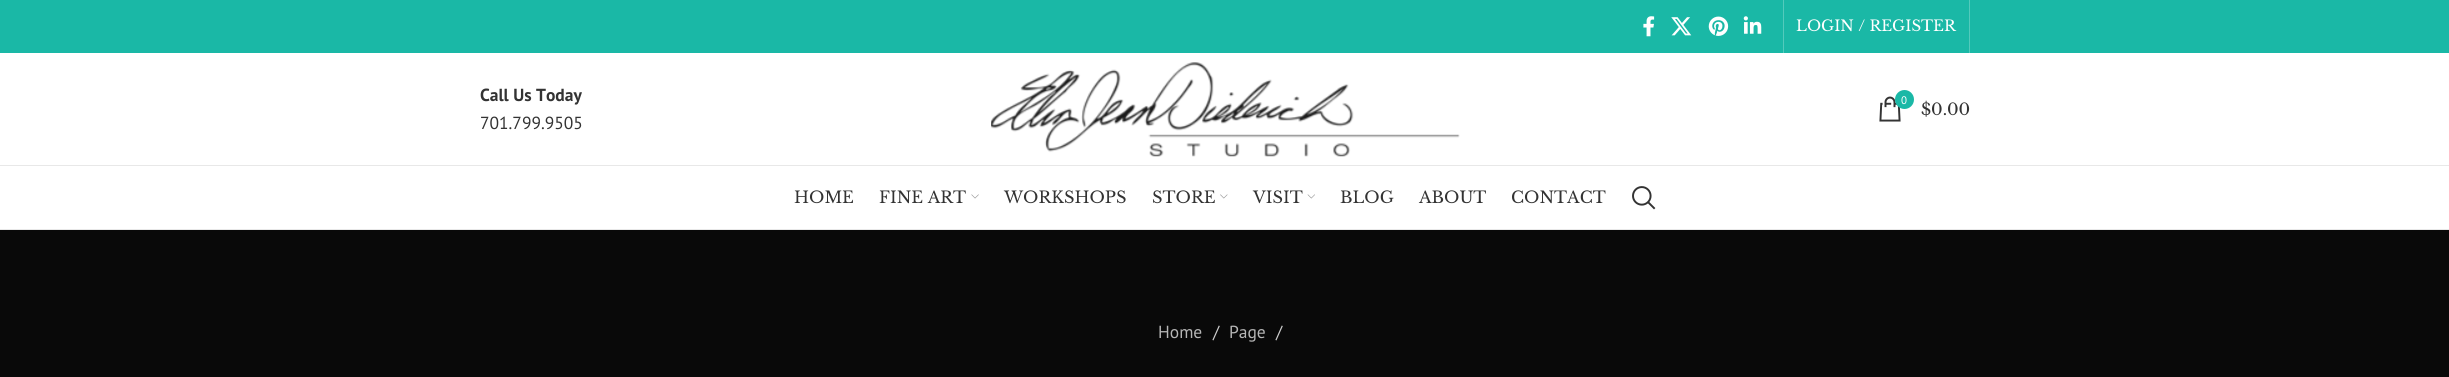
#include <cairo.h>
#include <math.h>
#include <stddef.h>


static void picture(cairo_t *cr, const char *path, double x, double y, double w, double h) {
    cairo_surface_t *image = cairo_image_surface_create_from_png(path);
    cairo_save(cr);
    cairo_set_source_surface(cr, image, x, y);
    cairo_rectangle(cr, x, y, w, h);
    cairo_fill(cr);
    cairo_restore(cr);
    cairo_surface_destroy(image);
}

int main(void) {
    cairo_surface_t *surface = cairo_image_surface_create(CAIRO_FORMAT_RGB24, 2449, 377);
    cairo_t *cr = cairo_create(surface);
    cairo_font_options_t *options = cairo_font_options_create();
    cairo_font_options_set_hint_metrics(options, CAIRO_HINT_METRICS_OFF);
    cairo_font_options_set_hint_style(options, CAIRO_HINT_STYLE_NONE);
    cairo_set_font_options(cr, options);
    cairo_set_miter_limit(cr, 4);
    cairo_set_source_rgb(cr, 1, 1, 1);
    cairo_paint(cr);
    cairo_set_source_rgb(cr, 0.102, 0.722, 0.651);
    cairo_rectangle(cr, 0, 0, 2449, 53);
    cairo_fill(cr);
    picture(cr, "img1.png", 1643, 16, 12, 21);
    picture(cr, "img2.png", 1671, 17, 21, 19);
    picture(cr, "img3.png", 1708, 16, 21, 20);
    picture(cr, "img4.png", 1743, 16, 19, 18);
    cairo_set_source_rgb(cr, 0.325, 0.792, 0.737);
    cairo_rectangle(cr, 1783, 0, 1, 53);
    cairo_fill(cr);
    cairo_select_font_face(cr, "Libre Baskerville", CAIRO_FONT_SLANT_NORMAL, CAIRO_FONT_WEIGHT_NORMAL);
    cairo_set_font_size(cr, 15);
    cairo_set_source_rgb(cr, 1, 1, 1);
    cairo_move_to(cr, 1796, 31);
    cairo_show_text(cr, "LOGIN / REGISTER");
    cairo_set_source_rgb(cr, 0.325, 0.792, 0.737);
    cairo_rectangle(cr, 1969, 0, 1, 53);
    cairo_fill(cr);
    cairo_set_source_rgb(cr, 0.91, 0.91, 0.91);
    cairo_rectangle(cr, 0, 165, 2449, 1);
    cairo_fill(cr);
    cairo_select_font_face(cr, "PT Sans", CAIRO_FONT_SLANT_NORMAL, CAIRO_FONT_WEIGHT_BOLD);
    cairo_set_font_size(cr, 17.5);
    cairo_set_source_rgb(cr, 0.2, 0.2, 0.2);
    cairo_move_to(cr, 480, 101);
    cairo_show_text(cr, "Call Us Today");
    cairo_select_font_face(cr, "PT Sans", CAIRO_FONT_SLANT_NORMAL, CAIRO_FONT_WEIGHT_NORMAL);
    cairo_move_to(cr, 480, 129);
    cairo_show_text(cr, "701.799.9505");
    picture(cr, "img5.png", 991, 62, 469, 95);
    picture(cr, "img6.png", 1879, 96, 22, 26);
    cairo_set_source_rgb(cr, 0.102, 0.722, 0.651);
    cairo_arc(cr, 1904.5, 99.5, 9.5, 0, 2 * M_PI);
    cairo_fill(cr);
    cairo_set_font_size(cr, 11);
    cairo_set_source_rgb(cr, 1, 1, 1);
    cairo_move_to(cr, 1901, 104);
    cairo_show_text(cr, "0");
    cairo_select_font_face(cr, "Libre Baskerville", CAIRO_FONT_SLANT_NORMAL, CAIRO_FONT_WEIGHT_NORMAL);
    cairo_set_font_size(cr, 16.25);
    cairo_set_source_rgb(cr, 0.2, 0.2, 0.2);
    cairo_move_to(cr, 1921, 115);
    cairo_show_text(cr, "$0.00");
    cairo_set_source_rgb(cr, 0.91, 0.91, 0.91);
    cairo_rectangle(cr, 0, 229, 2449, 1);
    cairo_fill(cr);
    cairo_set_source_rgb(cr, 0.2, 0.2, 0.2);
    cairo_move_to(cr, 794, 203);
    cairo_show_text(cr, "HOME");
    cairo_move_to(cr, 879, 203);
    cairo_show_text(cr, "FINE ART");
    picture(cr, "img7.png", 971, 194, 8, 5);
    cairo_move_to(cr, 1004, 203);
    cairo_show_text(cr, "WORKSHOPS");
    cairo_move_to(cr, 1152, 203);
    cairo_show_text(cr, "STORE");
    picture(cr, "img8.png", 1220, 194, 8, 5);
    cairo_move_to(cr, 1253, 203);
    cairo_show_text(cr, "VISIT");
    picture(cr, "img9.png", 1307, 194, 8, 5);
    cairo_move_to(cr, 1340, 203);
    cairo_show_text(cr, "BLOG");
    cairo_move_to(cr, 1419, 203);
    cairo_show_text(cr, "ABOUT");
    cairo_move_to(cr, 1511, 203);
    cairo_show_text(cr, "CONTACT");
    picture(cr, "img10.png", 1632, 186, 24, 24);
    cairo_set_source_rgb(cr, 0.039, 0.039, 0.039);
    cairo_rectangle(cr, 0, 230, 2449, 147);
    cairo_fill(cr);
    cairo_select_font_face(cr, "PT Sans", CAIRO_FONT_SLANT_NORMAL, CAIRO_FONT_WEIGHT_NORMAL);
    cairo_set_font_size(cr, 17.5);
    cairo_set_source_rgb(cr, 0.714, 0.714, 0.714);
    cairo_move_to(cr, 1158, 338);
    cairo_show_text(cr, "Home");
    cairo_set_source_rgb(cr, 0.808, 0.808, 0.808);
    cairo_move_to(cr, 1213, 338);
    cairo_show_text(cr, "/");
    cairo_set_source_rgb(cr, 0.714, 0.714, 0.714);
    cairo_move_to(cr, 1229, 338);
    cairo_show_text(cr, "Page");
    cairo_set_source_rgb(cr, 0.808, 0.808, 0.808);
    cairo_move_to(cr, 1276, 338);
    cairo_show_text(cr, "/");
    cairo_surface_write_to_png(surface, "page.png");
    cairo_font_options_destroy(options);
    cairo_destroy(cr);
    cairo_surface_destroy(surface);
    return 0;
}
